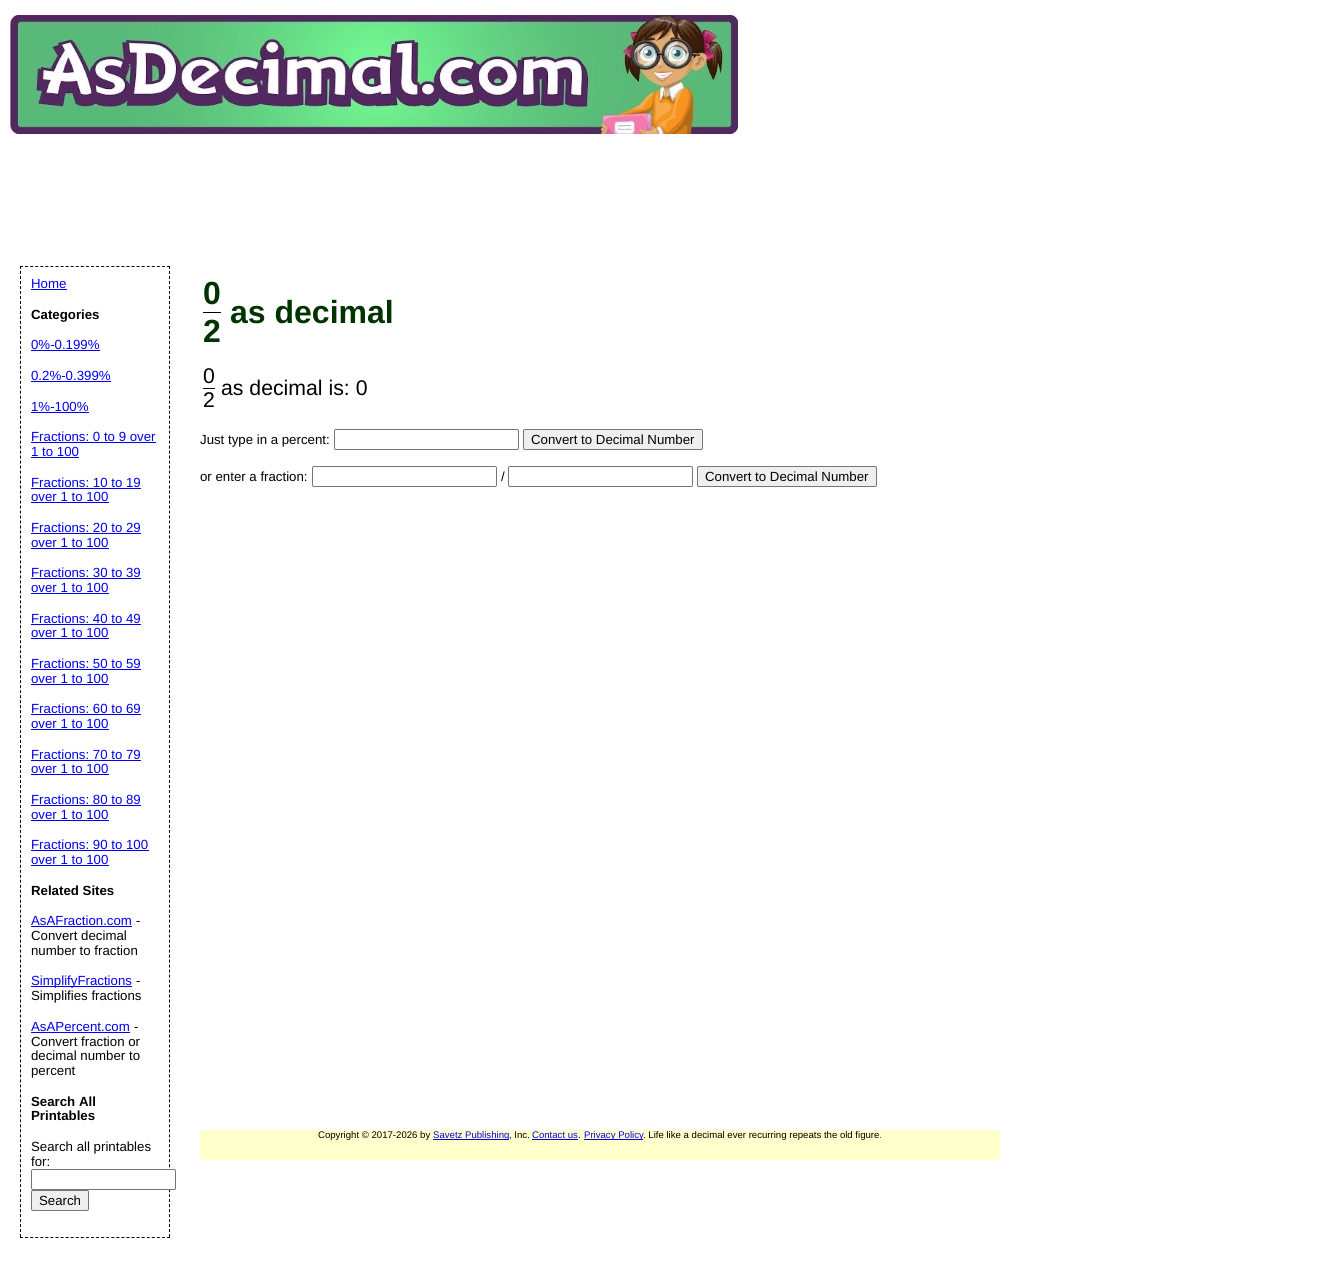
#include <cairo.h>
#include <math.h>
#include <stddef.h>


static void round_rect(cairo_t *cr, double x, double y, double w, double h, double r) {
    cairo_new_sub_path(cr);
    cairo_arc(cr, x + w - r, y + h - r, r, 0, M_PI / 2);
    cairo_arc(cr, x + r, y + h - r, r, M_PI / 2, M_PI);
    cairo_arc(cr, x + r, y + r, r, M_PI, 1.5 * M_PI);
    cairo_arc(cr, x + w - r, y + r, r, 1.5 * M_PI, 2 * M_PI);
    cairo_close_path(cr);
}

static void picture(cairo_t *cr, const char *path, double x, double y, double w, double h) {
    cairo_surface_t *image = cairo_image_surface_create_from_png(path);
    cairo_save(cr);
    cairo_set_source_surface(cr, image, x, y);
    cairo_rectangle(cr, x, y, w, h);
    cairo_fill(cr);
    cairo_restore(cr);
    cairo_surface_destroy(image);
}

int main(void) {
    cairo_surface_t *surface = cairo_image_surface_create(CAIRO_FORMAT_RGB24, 1326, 1276);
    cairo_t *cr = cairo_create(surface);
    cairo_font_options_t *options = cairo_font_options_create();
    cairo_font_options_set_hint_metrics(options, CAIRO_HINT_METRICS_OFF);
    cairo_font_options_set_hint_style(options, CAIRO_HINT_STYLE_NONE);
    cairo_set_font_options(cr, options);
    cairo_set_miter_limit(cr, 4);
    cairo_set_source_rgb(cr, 1, 1, 1);
    cairo_paint(cr);
    picture(cr, "img1.png", 10, 15, 728, 119);
    cairo_new_path(cr);
    cairo_move_to(cr, 20, 266.5);
    cairo_line_to(cr, 170, 266.5);
    cairo_set_source_rgb(cr, 0, 0, 0);
    cairo_set_line_width(cr, 1);
    cairo_set_dash(cr, (double[]){3, 2.07}, 2, 0);
    cairo_stroke(cr);
    cairo_new_path(cr);
    cairo_move_to(cr, 169.5, 266);
    cairo_line_to(cr, 169.5, 1238);
    cairo_set_dash(cr, (double[]){3, 1.99}, 2, 0);
    cairo_stroke(cr);
    cairo_new_path(cr);
    cairo_move_to(cr, 20, 1237.5);
    cairo_line_to(cr, 170, 1237.5);
    cairo_set_dash(cr, (double[]){3, 2.07}, 2, 0);
    cairo_stroke(cr);
    cairo_new_path(cr);
    cairo_move_to(cr, 20.5, 266);
    cairo_line_to(cr, 20.5, 1238);
    cairo_set_dash(cr, (double[]){3, 1.99}, 2, 0);
    cairo_stroke(cr);
    cairo_select_font_face(cr, "Liberation Sans", CAIRO_FONT_SLANT_NORMAL, CAIRO_FONT_WEIGHT_NORMAL);
    cairo_set_font_size(cr, 13.25);
    cairo_set_source_rgb(cr, 0, 0, 0.933);
    cairo_move_to(cr, 31, 288);
    cairo_show_text(cr, "Home");
    cairo_rectangle(cr, 31, 289, 36, 1);
    cairo_fill(cr);
    cairo_select_font_face(cr, "Liberation Sans", CAIRO_FONT_SLANT_NORMAL, CAIRO_FONT_WEIGHT_BOLD);
    cairo_set_source_rgb(cr, 0, 0, 0);
    cairo_move_to(cr, 31, 319);
    cairo_show_text(cr, "Categories");
    cairo_select_font_face(cr, "Liberation Sans", CAIRO_FONT_SLANT_NORMAL, CAIRO_FONT_WEIGHT_NORMAL);
    cairo_set_source_rgb(cr, 0, 0, 0.933);
    cairo_move_to(cr, 31, 349);
    cairo_show_text(cr, "0%-0.199%");
    cairo_rectangle(cr, 31, 350, 69, 1);
    cairo_fill(cr);
    cairo_move_to(cr, 31, 380);
    cairo_show_text(cr, "0.2%-0.399%");
    cairo_rectangle(cr, 31, 381, 80, 1);
    cairo_fill(cr);
    cairo_move_to(cr, 31, 411);
    cairo_show_text(cr, "1%-100%");
    cairo_rectangle(cr, 31, 412, 58, 1);
    cairo_fill(cr);
    cairo_move_to(cr, 31, 441);
    cairo_show_text(cr, "Fractions: 0 to 9 over");
    cairo_rectangle(cr, 31, 442, 125, 1);
    cairo_fill(cr);
    cairo_move_to(cr, 31, 456);
    cairo_show_text(cr, "1 to 100");
    cairo_rectangle(cr, 31, 457, 48, 1);
    cairo_fill(cr);
    cairo_move_to(cr, 31, 487);
    cairo_show_text(cr, "Fractions: 10 to 19");
    cairo_rectangle(cr, 31, 488, 110, 1);
    cairo_fill(cr);
    cairo_move_to(cr, 31, 501);
    cairo_show_text(cr, "over 1 to 100");
    cairo_rectangle(cr, 31, 502, 78, 1);
    cairo_fill(cr);
    cairo_move_to(cr, 31, 532);
    cairo_show_text(cr, "Fractions: 20 to 29");
    cairo_rectangle(cr, 31, 533, 110, 1);
    cairo_fill(cr);
    cairo_move_to(cr, 31, 547);
    cairo_show_text(cr, "over 1 to 100");
    cairo_rectangle(cr, 31, 548, 78, 1);
    cairo_fill(cr);
    cairo_move_to(cr, 31, 577);
    cairo_show_text(cr, "Fractions: 30 to 39");
    cairo_rectangle(cr, 31, 578, 110, 1);
    cairo_fill(cr);
    cairo_move_to(cr, 31, 592);
    cairo_show_text(cr, "over 1 to 100");
    cairo_rectangle(cr, 31, 593, 78, 1);
    cairo_fill(cr);
    cairo_move_to(cr, 31, 623);
    cairo_show_text(cr, "Fractions: 40 to 49");
    cairo_rectangle(cr, 31, 624, 110, 1);
    cairo_fill(cr);
    cairo_move_to(cr, 31, 637);
    cairo_show_text(cr, "over 1 to 100");
    cairo_rectangle(cr, 31, 638, 78, 1);
    cairo_fill(cr);
    cairo_move_to(cr, 31, 668);
    cairo_show_text(cr, "Fractions: 50 to 59");
    cairo_rectangle(cr, 31, 669, 110, 1);
    cairo_fill(cr);
    cairo_move_to(cr, 31, 683);
    cairo_show_text(cr, "over 1 to 100");
    cairo_rectangle(cr, 31, 684, 78, 1);
    cairo_fill(cr);
    cairo_move_to(cr, 31, 713);
    cairo_show_text(cr, "Fractions: 60 to 69");
    cairo_rectangle(cr, 31, 714, 110, 1);
    cairo_fill(cr);
    cairo_move_to(cr, 31, 728);
    cairo_show_text(cr, "over 1 to 100");
    cairo_rectangle(cr, 31, 729, 78, 1);
    cairo_fill(cr);
    cairo_move_to(cr, 31, 759);
    cairo_show_text(cr, "Fractions: 70 to 79");
    cairo_rectangle(cr, 31, 760, 110, 1);
    cairo_fill(cr);
    cairo_move_to(cr, 31, 773);
    cairo_show_text(cr, "over 1 to 100");
    cairo_rectangle(cr, 31, 774, 78, 1);
    cairo_fill(cr);
    cairo_move_to(cr, 31, 804);
    cairo_show_text(cr, "Fractions: 80 to 89");
    cairo_rectangle(cr, 31, 805, 110, 1);
    cairo_fill(cr);
    cairo_move_to(cr, 31, 819);
    cairo_show_text(cr, "over 1 to 100");
    cairo_rectangle(cr, 31, 820, 78, 1);
    cairo_fill(cr);
    cairo_move_to(cr, 31, 849);
    cairo_show_text(cr, "Fractions: 90 to 100");
    cairo_rectangle(cr, 31, 850, 118, 1);
    cairo_fill(cr);
    cairo_move_to(cr, 31, 864);
    cairo_show_text(cr, "over 1 to 100");
    cairo_rectangle(cr, 31, 865, 78, 1);
    cairo_fill(cr);
    cairo_select_font_face(cr, "Liberation Sans", CAIRO_FONT_SLANT_NORMAL, CAIRO_FONT_WEIGHT_BOLD);
    cairo_set_source_rgb(cr, 0, 0, 0);
    cairo_move_to(cr, 31, 895);
    cairo_show_text(cr, "Related Sites");
    cairo_select_font_face(cr, "Liberation Sans", CAIRO_FONT_SLANT_NORMAL, CAIRO_FONT_WEIGHT_NORMAL);
    cairo_set_source_rgb(cr, 0, 0, 0.933);
    cairo_move_to(cr, 31, 925);
    cairo_show_text(cr, "AsAFraction.com");
    cairo_rectangle(cr, 31, 926, 101, 1);
    cairo_fill(cr);
    cairo_set_source_rgb(cr, 0, 0, 0);
    cairo_move_to(cr, 136, 925);
    cairo_show_text(cr, "-");
    cairo_move_to(cr, 31, 940);
    cairo_show_text(cr, "Convert decimal");
    cairo_move_to(cr, 31, 955);
    cairo_show_text(cr, "number to fraction");
    cairo_set_source_rgb(cr, 0, 0, 0.933);
    cairo_rectangle(cr, 31, 986, 101, 1);
    cairo_fill(cr);
    cairo_move_to(cr, 31, 985);
    cairo_show_text(cr, "SimplifyFractions");
    cairo_set_source_rgb(cr, 0, 0, 0);
    cairo_move_to(cr, 136, 985);
    cairo_show_text(cr, "-");
    cairo_move_to(cr, 31, 1000);
    cairo_show_text(cr, "Simplifies fractions");
    cairo_set_source_rgb(cr, 0, 0, 0.933);
    cairo_move_to(cr, 31, 1031);
    cairo_show_text(cr, "AsAPercent.com");
    cairo_rectangle(cr, 31, 1032, 99, 1);
    cairo_fill(cr);
    cairo_set_source_rgb(cr, 0, 0, 0);
    cairo_move_to(cr, 134, 1031);
    cairo_show_text(cr, "-");
    cairo_move_to(cr, 31, 1046);
    cairo_show_text(cr, "Convert fraction or");
    cairo_move_to(cr, 31, 1060);
    cairo_show_text(cr, "decimal number to");
    cairo_move_to(cr, 31, 1075);
    cairo_show_text(cr, "percent");
    cairo_select_font_face(cr, "Liberation Sans", CAIRO_FONT_SLANT_NORMAL, CAIRO_FONT_WEIGHT_BOLD);
    cairo_move_to(cr, 31, 1106);
    cairo_show_text(cr, "Search All");
    cairo_move_to(cr, 31, 1120);
    cairo_show_text(cr, "Printables");
    cairo_select_font_face(cr, "Liberation Sans", CAIRO_FONT_SLANT_NORMAL, CAIRO_FONT_WEIGHT_NORMAL);
    cairo_move_to(cr, 31, 1151);
    cairo_show_text(cr, "Search all printables");
    cairo_move_to(cr, 31, 1166);
    cairo_show_text(cr, "for:");
    cairo_set_source_rgb(cr, 1, 1, 1);
    round_rect(cr, 31.5, 1169.5, 144, 20, 1.5);
    cairo_fill_preserve(cr);
    cairo_set_source_rgb(cr, 0.463, 0.463, 0.463);
    cairo_set_dash(cr, NULL, 0, 0);
    cairo_stroke(cr);
    cairo_set_source_rgb(cr, 0.937, 0.937, 0.937);
    round_rect(cr, 31.5, 1190.5, 57, 20, 1.5);
    cairo_fill_preserve(cr);
    cairo_set_source_rgb(cr, 0.463, 0.463, 0.463);
    cairo_stroke(cr);
    cairo_set_source_rgb(cr, 0, 0, 0);
    cairo_move_to(cr, 39, 1205);
    cairo_show_text(cr, "Search");
    cairo_select_font_face(cr, "Liberation Sans", CAIRO_FONT_SLANT_NORMAL, CAIRO_FONT_WEIGHT_BOLD);
    cairo_set_font_size(cr, 32);
    cairo_set_source_rgb(cr, 0, 0.2, 0);
    cairo_move_to(cr, 203, 304);
    cairo_show_text(cr, "0");
    cairo_set_source_rgb(cr, 0, 0, 0);
    cairo_rectangle(cr, 203, 312, 18, 1);
    cairo_fill(cr);
    cairo_set_source_rgb(cr, 0, 0.2, 0);
    cairo_move_to(cr, 203, 342);
    cairo_show_text(cr, "2");
    cairo_move_to(cr, 230, 323);
    cairo_show_text(cr, "as decimal");
    cairo_select_font_face(cr, "Liberation Sans", CAIRO_FONT_SLANT_NORMAL, CAIRO_FONT_WEIGHT_NORMAL);
    cairo_set_font_size(cr, 21.25);
    cairo_set_source_rgb(cr, 0, 0, 0);
    cairo_move_to(cr, 203, 383);
    cairo_show_text(cr, "0");
    cairo_rectangle(cr, 203, 388, 12, 1);
    cairo_fill(cr);
    cairo_move_to(cr, 203, 407);
    cairo_show_text(cr, "2");
    cairo_move_to(cr, 221, 395);
    cairo_show_text(cr, "as decimal is: 0");
    cairo_set_font_size(cr, 13.25);
    cairo_move_to(cr, 200, 444);
    cairo_show_text(cr, "Just type in a percent:");
    round_rect(cr, 334.5, 429.5, 184, 20, 1.5);
    cairo_set_source_rgb(cr, 0.463, 0.463, 0.463);
    cairo_stroke(cr);
    cairo_set_source_rgb(cr, 0.937, 0.937, 0.937);
    round_rect(cr, 523.5, 429.5, 179, 20, 1.5);
    cairo_fill_preserve(cr);
    cairo_set_source_rgb(cr, 0.463, 0.463, 0.463);
    cairo_stroke(cr);
    cairo_set_source_rgb(cr, 0, 0, 0);
    cairo_move_to(cr, 531, 444);
    cairo_show_text(cr, "Convert to Decimal Number");
    cairo_move_to(cr, 200, 481);
    cairo_show_text(cr, "or enter a fraction:");
    round_rect(cr, 312.5, 466.5, 184, 20, 1.5);
    cairo_set_source_rgb(cr, 0.463, 0.463, 0.463);
    cairo_stroke(cr);
    cairo_set_source_rgb(cr, 0, 0, 0);
    cairo_move_to(cr, 501, 481);
    cairo_show_text(cr, "/");
    round_rect(cr, 508.5, 466.5, 184, 20, 1.5);
    cairo_set_source_rgb(cr, 0.463, 0.463, 0.463);
    cairo_stroke(cr);
    cairo_set_source_rgb(cr, 0.937, 0.937, 0.937);
    round_rect(cr, 697.5, 466.5, 179, 20, 1.5);
    cairo_fill_preserve(cr);
    cairo_set_source_rgb(cr, 0.463, 0.463, 0.463);
    cairo_stroke(cr);
    cairo_set_source_rgb(cr, 0, 0, 0);
    cairo_move_to(cr, 705, 481);
    cairo_show_text(cr, "Convert to Decimal Number");
    cairo_set_source_rgb(cr, 1, 1, 0.8);
    cairo_rectangle(cr, 200, 1130, 800, 30);
    cairo_fill(cr);
    cairo_set_font_size(cr, 9.6);
    cairo_set_source_rgb(cr, 0, 0, 0);
    cairo_move_to(cr, 318, 1138);
    cairo_show_text(cr, "Copyright © 2017-2026 by");
    cairo_set_source_rgb(cr, 0, 0, 0.933);
    cairo_rectangle(cr, 433, 1139, 76, 1);
    cairo_fill(cr);
    cairo_move_to(cr, 433, 1138);
    cairo_show_text(cr, "Savetz Publishing");
    cairo_set_source_rgb(cr, 0, 0, 0);
    cairo_move_to(cr, 509, 1138);
    cairo_show_text(cr, ", Inc.");
    cairo_set_source_rgb(cr, 0, 0, 0.933);
    cairo_move_to(cr, 532, 1138);
    cairo_show_text(cr, "Contact us");
    cairo_rectangle(cr, 532, 1139, 46, 1);
    cairo_fill(cr);
    cairo_set_source_rgb(cr, 0, 0, 0);
    cairo_move_to(cr, 578, 1138);
    cairo_show_text(cr, ".");
    cairo_set_source_rgb(cr, 0, 0, 0.933);
    cairo_rectangle(cr, 584, 1139, 59, 1);
    cairo_fill(cr);
    cairo_move_to(cr, 584, 1138);
    cairo_show_text(cr, "Privacy Policy");
    cairo_set_source_rgb(cr, 0, 0, 0);
    cairo_move_to(cr, 643, 1138);
    cairo_show_text(cr, ". Life like a decimal ever recurring repeats the old figure.");
    cairo_surface_write_to_png(surface, "page.png");
    cairo_font_options_destroy(options);
    cairo_destroy(cr);
    cairo_surface_destroy(surface);
    return 0;
}
